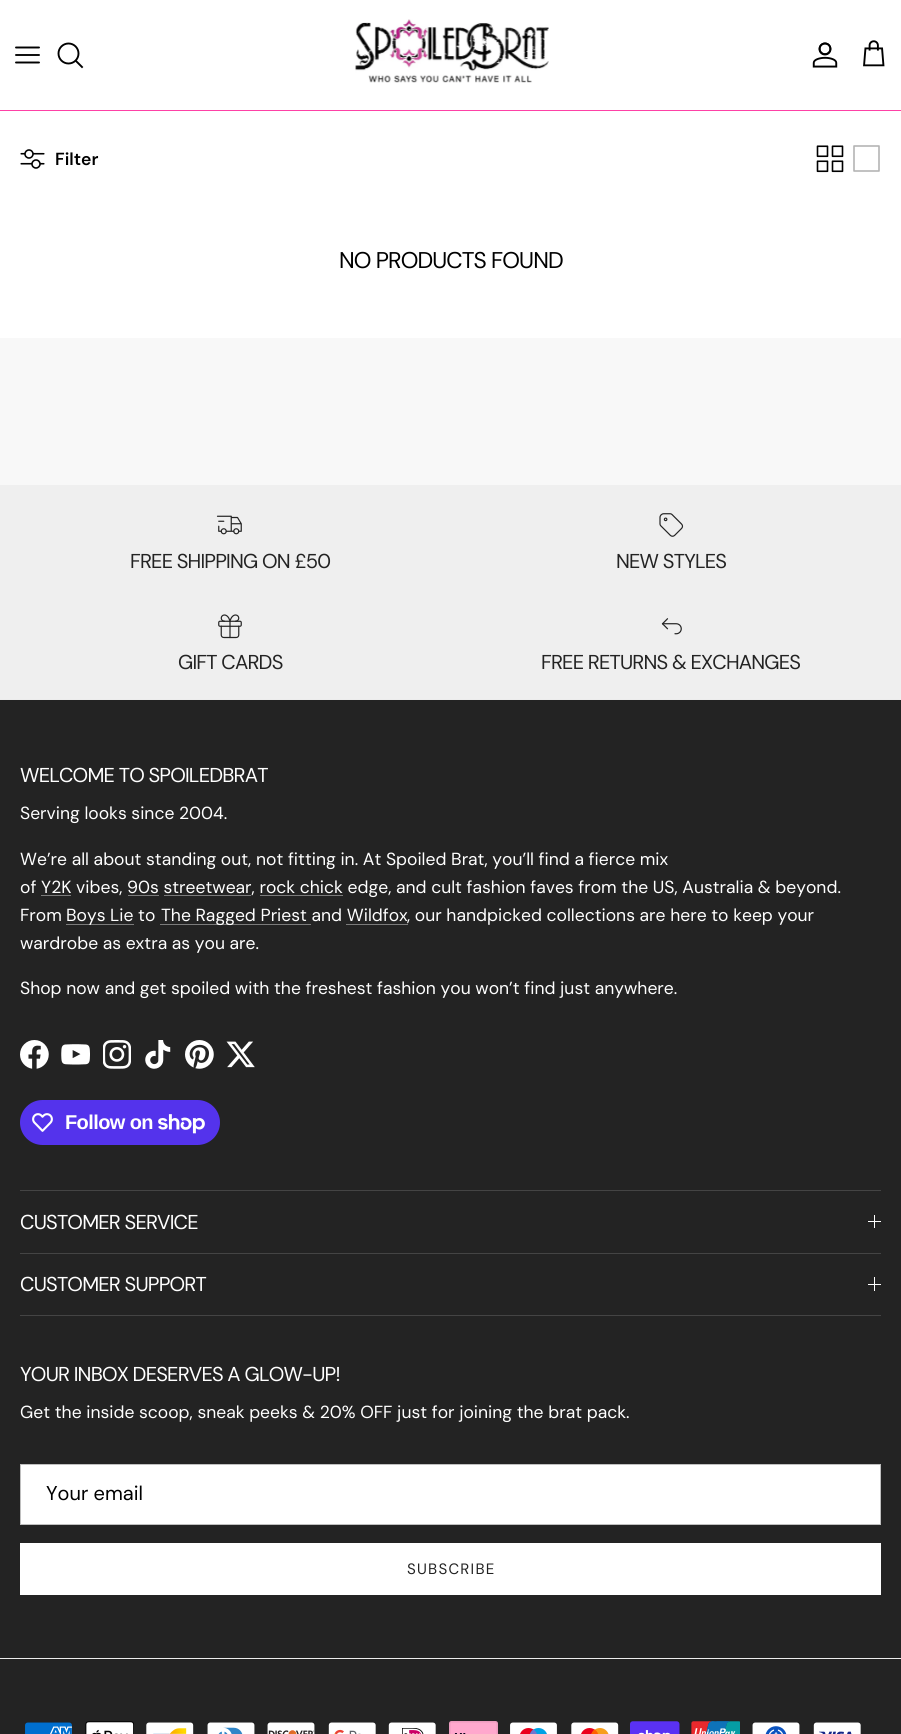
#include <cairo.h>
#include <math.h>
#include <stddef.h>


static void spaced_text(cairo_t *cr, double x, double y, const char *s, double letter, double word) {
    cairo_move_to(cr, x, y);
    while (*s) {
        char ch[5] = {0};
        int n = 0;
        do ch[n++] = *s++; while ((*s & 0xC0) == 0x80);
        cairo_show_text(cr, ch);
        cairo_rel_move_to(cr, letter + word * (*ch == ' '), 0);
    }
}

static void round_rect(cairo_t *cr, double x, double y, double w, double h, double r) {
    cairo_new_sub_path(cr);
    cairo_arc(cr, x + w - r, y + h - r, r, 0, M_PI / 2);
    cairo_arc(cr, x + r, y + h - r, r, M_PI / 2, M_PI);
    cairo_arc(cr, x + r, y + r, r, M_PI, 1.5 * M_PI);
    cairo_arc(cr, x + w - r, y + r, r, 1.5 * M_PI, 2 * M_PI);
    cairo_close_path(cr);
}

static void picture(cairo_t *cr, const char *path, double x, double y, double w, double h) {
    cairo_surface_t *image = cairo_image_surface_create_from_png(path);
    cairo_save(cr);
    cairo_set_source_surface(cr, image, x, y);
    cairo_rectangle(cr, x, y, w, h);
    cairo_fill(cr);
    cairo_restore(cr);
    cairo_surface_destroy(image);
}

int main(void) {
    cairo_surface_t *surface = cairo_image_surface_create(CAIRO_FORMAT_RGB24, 901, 1734);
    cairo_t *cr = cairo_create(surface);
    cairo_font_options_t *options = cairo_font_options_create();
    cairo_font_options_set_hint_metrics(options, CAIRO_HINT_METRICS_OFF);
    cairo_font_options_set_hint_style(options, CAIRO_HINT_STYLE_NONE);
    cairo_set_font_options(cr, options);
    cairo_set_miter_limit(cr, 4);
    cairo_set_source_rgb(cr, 1, 1, 1);
    cairo_paint(cr);
    cairo_set_source_rgb(cr, 0.996, 0.255, 0.651);
    cairo_rectangle(cr, 0, 110, 901, 1);
    cairo_fill(cr);
    cairo_new_path(cr);
    cairo_move_to(cr, 16, 55);
    cairo_line_to(cr, 39, 55);
    cairo_move_to(cr, 16, 47.5);
    cairo_line_to(cr, 39, 47.5);
    cairo_move_to(cr, 16, 62.5);
    cairo_line_to(cr, 39, 62.5);
    cairo_set_source_rgb(cr, 0, 0, 0);
    cairo_set_line_width(cr, 1.9);
    cairo_set_line_cap(cr, CAIRO_LINE_CAP_ROUND);
    cairo_set_line_join(cr, CAIRO_LINE_JOIN_ROUND);
    cairo_stroke(cr);
    cairo_arc(cr, 68.5, 53.5, 10, 0, 2 * M_PI);
    cairo_set_line_cap(cr, CAIRO_LINE_CAP_BUTT);
    cairo_set_line_join(cr, CAIRO_LINE_JOIN_MITER);
    cairo_stroke(cr);
    cairo_new_path(cr);
    cairo_move_to(cr, 76, 61);
    cairo_line_to(cr, 82, 67);
    cairo_set_line_cap(cr, CAIRO_LINE_CAP_SQUARE);
    cairo_stroke(cr);
    picture(cr, "img1.png", 355, 19, 194, 64);
    picture(cr, "img2.png", 812, 42, 26, 26);
    picture(cr, "img3.png", 863, 40, 22, 27);
    picture(cr, "img4.png", 20, 149, 25, 20);
    cairo_select_font_face(cr, "DM Sans SemiBold", CAIRO_FONT_SLANT_NORMAL, CAIRO_FONT_WEIGHT_NORMAL);
    cairo_set_font_size(cr, 17.5);
    cairo_move_to(cr, 55, 165);
    cairo_show_text(cr, "Filter");
    picture(cr, "img5.png", 816, 145, 28, 28);
    cairo_new_path(cr);
    cairo_move_to(cr, 854, 146);
    cairo_line_to(cr, 879, 146);
    cairo_line_to(cr, 879, 171);
    cairo_line_to(cr, 854, 171);
    cairo_line_to(cr, 854, 146);
    cairo_set_source_rgb(cr, 0.702, 0.702, 0.702);
    cairo_set_line_width(cr, 1.6);
    cairo_set_line_cap(cr, CAIRO_LINE_CAP_ROUND);
    cairo_set_line_join(cr, CAIRO_LINE_JOIN_ROUND);
    cairo_stroke(cr);
    cairo_select_font_face(cr, "DM Sans", CAIRO_FONT_SLANT_NORMAL, CAIRO_FONT_WEIGHT_NORMAL);
    cairo_set_font_size(cr, 22.75);
    cairo_set_source_rgb(cr, 0, 0, 0);
    spaced_text(cr, 339, 268, "NO PRODUCTS FOUND", -0.9, 0);
    cairo_set_source_rgb(cr, 0.969, 0.969, 0.969);
    cairo_rectangle(cr, 0, 338, 901, 147);
    cairo_fill(cr);
    cairo_set_source_rgb(cr, 0.937, 0.937, 0.937);
    cairo_rectangle(cr, 0, 485, 901, 214);
    cairo_fill(cr);
    picture(cr, "img6.png", 216, 515, 26, 20);
    cairo_select_font_face(cr, "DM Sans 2", CAIRO_FONT_SLANT_NORMAL, CAIRO_FONT_WEIGHT_NORMAL);
    cairo_set_font_size(cr, 20.1);
    cairo_set_source_rgb(cr, 0.137, 0.137, 0.137);
    spaced_text(cr, 130, 568, "FREE SHIPPING ON £50", -0.8, 0);
    picture(cr, "img7.png", 659, 513, 25, 24);
    spaced_text(cr, 616, 568, "NEW STYLES", -0.8, 0);
    picture(cr, "img8.png", 218, 614, 24, 25);
    spaced_text(cr, 178, 669, "GIFT CARDS", -0.8, 0);
    picture(cr, "img9.png", 661, 618, 21, 17);
    spaced_text(cr, 541, 669, "FREE RETURNS & EXCHANGES", -0.8, 0);
    cairo_rectangle(cr, 0, 700, 901, 1034);
    cairo_fill(cr);
    cairo_set_source_rgb(cr, 0.925, 0.925, 0.925);
    cairo_rectangle(cr, 0, 699, 901, 1);
    cairo_fill(cr);
    cairo_set_source_rgb(cr, 1, 1, 1);
    spaced_text(cr, 20, 782, "WELCOME TO SPOILEDBRAT", -0.8, 0);
    cairo_select_font_face(cr, "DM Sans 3", CAIRO_FONT_SLANT_NORMAL, CAIRO_FONT_WEIGHT_NORMAL);
    cairo_set_font_size(cr, 17.5);
    cairo_move_to(cr, 20, 819);
    cairo_show_text(cr, "Serving looks since 2004.");
    cairo_move_to(cr, 20, 865);
    cairo_show_text(cr, "We’re all about standing out, not fitting in. At Spoiled Brat, you’ll find a fierce mix");
    cairo_move_to(cr, 20, 893);
    cairo_show_text(cr, "of Y2K vibes, 90s streetwear, rock chick edge, and cult fashion faves from the US, Australia & beyond.");
    cairo_set_source_rgb(cr, 0.482, 0.482, 0.482);
    cairo_rectangle(cr, 41, 895, 30, 1);
    cairo_fill(cr);
    cairo_rectangle(cr, 128, 895, 31, 1);
    cairo_fill(cr);
    cairo_rectangle(cr, 164, 895, 87, 1);
    cairo_fill(cr);
    cairo_rectangle(cr, 260, 895, 83, 1);
    cairo_fill(cr);
    cairo_set_source_rgb(cr, 1, 1, 1);
    cairo_move_to(cr, 20, 921);
    cairo_show_text(cr, "From");
    cairo_set_source_rgb(cr, 0.482, 0.482, 0.482);
    cairo_rectangle(cr, 66, 924, 68, 1);
    cairo_fill(cr);
    cairo_set_source_rgb(cr, 1, 1, 1);
    cairo_move_to(cr, 66, 921);
    cairo_show_text(cr, "Boys Lie to");
    cairo_set_source_rgb(cr, 0.482, 0.482, 0.482);
    cairo_rectangle(cr, 160, 924, 151, 1);
    cairo_fill(cr);
    cairo_set_source_rgb(cr, 1, 1, 1);
    cairo_move_to(cr, 161, 921);
    cairo_show_text(cr, "The Ragged Priest and Wildfox");
    cairo_set_source_rgb(cr, 0.482, 0.482, 0.482);
    cairo_rectangle(cr, 346, 924, 62, 1);
    cairo_fill(cr);
    cairo_set_source_rgb(cr, 1, 1, 1);
    cairo_move_to(cr, 407, 921);
    cairo_show_text(cr, ", our handpicked collections are here to keep your");
    cairo_move_to(cr, 20, 949);
    cairo_show_text(cr, "wardrobe as extra as you are.");
    cairo_move_to(cr, 20, 994);
    cairo_show_text(cr, "Shop now and get spoiled with the freshest fashion you won’t find just anywhere.");
    picture(cr, "img10.png", 20, 1040, 29, 29);
    picture(cr, "img11.png", 61, 1044, 29, 21);
    picture(cr, "img12.png", 103, 1040, 28, 29);
    picture(cr, "img13.png", 145, 1040, 26, 29);
    picture(cr, "img14.png", 185, 1040, 29, 29);
    picture(cr, "img15.png", 226, 1041, 29, 27);
    cairo_set_source_rgb(cr, 0.329, 0.2, 0.922);
    round_rect(cr, 20, 1100, 200, 45, 22.5);
    cairo_fill(cr);
    picture(cr, "img16.png", 32, 1113, 21, 19);
    cairo_select_font_face(cr, "Liberation Sans", CAIRO_FONT_SLANT_NORMAL, CAIRO_FONT_WEIGHT_BOLD);
    cairo_set_font_size(cr, 20);
    cairo_set_source_rgb(cr, 1, 1, 1);
    spaced_text(cr, 65, 1129, "Follow on", -0.6, 0);
    picture(cr, "img17.png", 158, 1114, 47, 20);
    cairo_set_source_rgb(cr, 0.267, 0.267, 0.267);
    cairo_rectangle(cr, 20, 1190, 861, 1);
    cairo_fill(cr);
    cairo_select_font_face(cr, "DM Sans 2", CAIRO_FONT_SLANT_NORMAL, CAIRO_FONT_WEIGHT_NORMAL);
    cairo_set_font_size(cr, 20.1);
    cairo_set_source_rgb(cr, 1, 1, 1);
    spaced_text(cr, 20, 1229, "CUSTOMER SERVICE", -0.8, 0);
    cairo_rectangle(cr, 874, 1215, 1, 13);
    cairo_fill(cr);
    cairo_rectangle(cr, 868, 1221, 13, 1);
    cairo_fill(cr);
    cairo_set_source_rgb(cr, 0.267, 0.267, 0.267);
    cairo_rectangle(cr, 20, 1253, 861, 1);
    cairo_fill(cr);
    cairo_rectangle(cr, 20, 1315, 861, 1);
    cairo_fill(cr);
    cairo_set_source_rgb(cr, 1, 1, 1);
    spaced_text(cr, 20, 1291, "CUSTOMER SUPPORT", -0.8, 0);
    cairo_rectangle(cr, 874, 1277, 1, 14);
    cairo_fill(cr);
    cairo_rectangle(cr, 868, 1284, 13, 1);
    cairo_fill(cr);
    spaced_text(cr, 20, 1381, "YOUR INBOX DESERVES A GLOW-UP!", -0.8, 0);
    cairo_select_font_face(cr, "DM Sans 3", CAIRO_FONT_SLANT_NORMAL, CAIRO_FONT_WEIGHT_NORMAL);
    cairo_set_font_size(cr, 17.5);
    cairo_move_to(cr, 20, 1418);
    cairo_show_text(cr, "Get the inside scoop, sneak peeks & 20% OFF just for joining the brat pack.");
    cairo_rectangle(cr, 20.5, 1464.5, 860, 60);
    cairo_fill_preserve(cr);
    cairo_set_source_rgb(cr, 0.749, 0.749, 0.749);
    cairo_set_line_width(cr, 1);
    cairo_set_line_cap(cr, CAIRO_LINE_CAP_BUTT);
    cairo_set_line_join(cr, CAIRO_LINE_JOIN_MITER);
    cairo_stroke(cr);
    cairo_select_font_face(cr, "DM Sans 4", CAIRO_FONT_SLANT_NORMAL, CAIRO_FONT_WEIGHT_NORMAL);
    cairo_set_font_size(cr, 20);
    cairo_set_source_rgb(cr, 0, 0, 0);
    cairo_move_to(cr, 46, 1500);
    cairo_show_text(cr, "Your email");
    cairo_set_source_rgb(cr, 1, 1, 1);
    cairo_rectangle(cr, 20, 1543, 861, 52);
    cairo_fill(cr);
    cairo_select_font_face(cr, "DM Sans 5", CAIRO_FONT_SLANT_NORMAL, CAIRO_FONT_WEIGHT_NORMAL);
    cairo_set_font_size(cr, 15);
    cairo_set_source_rgb(cr, 0.137, 0.137, 0.137);
    spaced_text(cr, 407, 1574, "SUBSCRIBE", 1.25, 0);
    cairo_set_source_rgb(cr, 0.925, 0.925, 0.925);
    cairo_rectangle(cr, 0, 1658, 901, 1);
    cairo_fill(cr);
    picture(cr, "img18.png", 25, 1722, 47, 12);
    picture(cr, "img19.png", 85, 1721, 49, 13);
    picture(cr, "img20.png", 146, 1722, 48, 12);
    picture(cr, "img21.png", 207, 1722, 48, 12);
    picture(cr, "img22.png", 267, 1722, 48, 12);
    picture(cr, "img23.png", 328, 1722, 48, 12);
    picture(cr, "img24.png", 388, 1722, 48, 12);
    picture(cr, "img25.png", 449, 1721, 49, 13);
    picture(cr, "img26.png", 510, 1722, 47, 12);
    picture(cr, "img27.png", 571, 1722, 48, 12);
    picture(cr, "img28.png", 630, 1721, 50, 13);
    picture(cr, "img29.png", 691, 1721, 49, 13);
    picture(cr, "img30.png", 752, 1722, 48, 12);
    picture(cr, "img31.png", 813, 1722, 48, 12);
    cairo_surface_write_to_png(surface, "page.png");
    cairo_font_options_destroy(options);
    cairo_destroy(cr);
    cairo_surface_destroy(surface);
    return 0;
}
